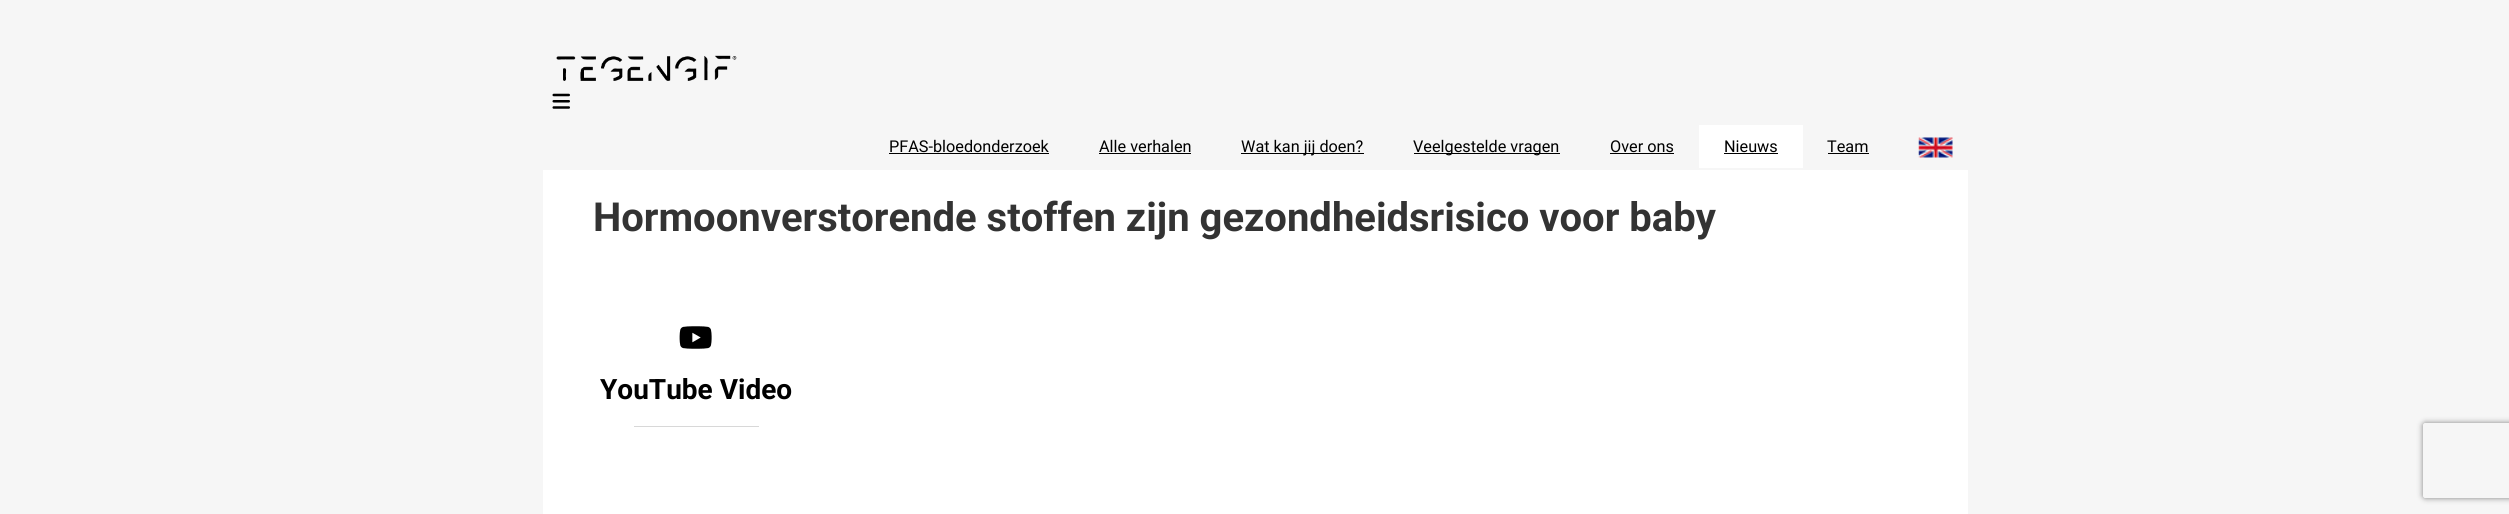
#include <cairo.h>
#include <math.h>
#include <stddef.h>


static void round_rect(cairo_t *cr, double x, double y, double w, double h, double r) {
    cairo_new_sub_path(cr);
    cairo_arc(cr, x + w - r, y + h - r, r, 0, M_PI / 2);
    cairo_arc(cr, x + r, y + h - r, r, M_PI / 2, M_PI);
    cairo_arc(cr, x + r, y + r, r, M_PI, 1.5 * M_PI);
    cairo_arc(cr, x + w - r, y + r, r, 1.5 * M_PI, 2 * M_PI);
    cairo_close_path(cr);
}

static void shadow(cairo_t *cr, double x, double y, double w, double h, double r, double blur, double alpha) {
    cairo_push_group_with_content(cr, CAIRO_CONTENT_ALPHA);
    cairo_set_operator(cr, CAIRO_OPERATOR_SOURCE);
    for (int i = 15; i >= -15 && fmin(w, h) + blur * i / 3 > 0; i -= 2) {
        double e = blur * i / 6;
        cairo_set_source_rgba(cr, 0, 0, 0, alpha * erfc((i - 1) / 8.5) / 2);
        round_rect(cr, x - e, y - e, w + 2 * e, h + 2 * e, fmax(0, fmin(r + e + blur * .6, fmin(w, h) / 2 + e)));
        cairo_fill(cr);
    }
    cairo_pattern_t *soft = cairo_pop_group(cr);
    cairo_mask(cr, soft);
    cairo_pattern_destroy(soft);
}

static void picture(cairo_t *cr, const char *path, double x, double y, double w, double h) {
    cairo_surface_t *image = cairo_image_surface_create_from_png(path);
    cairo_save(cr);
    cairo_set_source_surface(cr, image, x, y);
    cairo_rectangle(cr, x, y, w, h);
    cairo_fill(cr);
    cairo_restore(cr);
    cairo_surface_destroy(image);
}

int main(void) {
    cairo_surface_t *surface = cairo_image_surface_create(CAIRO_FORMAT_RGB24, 2509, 514);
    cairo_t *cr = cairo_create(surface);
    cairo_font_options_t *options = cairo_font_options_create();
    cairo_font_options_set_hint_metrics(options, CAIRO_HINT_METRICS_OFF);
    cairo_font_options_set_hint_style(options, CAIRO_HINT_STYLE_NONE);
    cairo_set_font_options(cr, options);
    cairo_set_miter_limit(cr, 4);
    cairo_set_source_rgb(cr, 0.961, 0.961, 0.961);
    cairo_paint(cr);
    picture(cr, "img1.png", 556, 55, 181, 26);
    picture(cr, "img2.png", 552, 93, 18, 16);
    cairo_select_font_face(cr, "Roboto", CAIRO_FONT_SLANT_NORMAL, CAIRO_FONT_WEIGHT_NORMAL);
    cairo_set_font_size(cr, 16.25);
    cairo_set_source_rgb(cr, 0, 0, 0);
    cairo_move_to(cr, 889, 152);
    cairo_show_text(cr, "PFAS-bloedonderzoek");
    cairo_rectangle(cr, 889, 153, 160, 1);
    cairo_fill(cr);
    cairo_move_to(cr, 1099, 152);
    cairo_show_text(cr, "Alle verhalen");
    cairo_rectangle(cr, 1099, 153, 92, 1);
    cairo_fill(cr);
    cairo_rectangle(cr, 1241, 153, 123, 1);
    cairo_fill(cr);
    cairo_move_to(cr, 1241, 152);
    cairo_show_text(cr, "Wat kan jij doen?");
    cairo_rectangle(cr, 1414, 153, 146, 1);
    cairo_fill(cr);
    cairo_move_to(cr, 1413, 152);
    cairo_show_text(cr, "Veelgestelde vragen");
    cairo_move_to(cr, 1610, 152);
    cairo_show_text(cr, "Over ons");
    cairo_rectangle(cr, 1610, 153, 64, 1);
    cairo_fill(cr);
    cairo_set_source_rgb(cr, 1, 1, 1);
    cairo_rectangle(cr, 1699, 125, 104, 43);
    cairo_fill(cr);
    cairo_set_source_rgb(cr, 0, 0, 0);
    cairo_move_to(cr, 1724, 152);
    cairo_show_text(cr, "Nieuws");
    cairo_rectangle(cr, 1724, 153, 54, 1);
    cairo_fill(cr);
    cairo_move_to(cr, 1827, 152);
    cairo_show_text(cr, "Team");
    cairo_rectangle(cr, 1828, 153, 41, 1);
    cairo_fill(cr);
    picture(cr, "img3.png", 1918, 137, 35, 21);
    cairo_set_source_rgb(cr, 1, 1, 1);
    cairo_rectangle(cr, 543, 170, 1425, 344);
    cairo_fill(cr);
    cairo_select_font_face(cr, "Roboto", CAIRO_FONT_SLANT_NORMAL, CAIRO_FONT_WEIGHT_BOLD);
    cairo_set_font_size(cr, 40);
    cairo_set_source_rgb(cr, 0.2, 0.2, 0.2);
    cairo_move_to(cr, 593, 231);
    cairo_show_text(cr, "Hormoonverstorende stoffen zijn gezondheidsrisico voor baby");
    picture(cr, "img4.png", 679, 326, 33, 23);
    cairo_set_font_size(cr, 28);
    cairo_set_source_rgb(cr, 0, 0, 0);
    cairo_move_to(cr, 600, 399);
    cairo_show_text(cr, "YouTube Video");
    cairo_set_source_rgb(cr, 0.847, 0.847, 0.847);
    cairo_rectangle(cr, 634, 426, 125, 1);
    cairo_fill(cr);
    cairo_save(cr);
    cairo_set_fill_rule(cr, CAIRO_FILL_RULE_EVEN_ODD);
    cairo_new_path(cr);
    cairo_move_to(cr, 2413, 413);
    cairo_line_to(cr, 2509, 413);
    cairo_line_to(cr, 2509, 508);
    cairo_line_to(cr, 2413, 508);
    cairo_close_path(cr);
    cairo_move_to(cr, 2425.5, 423);
    cairo_line_to(cr, 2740.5, 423);
    cairo_curve_to(cr, 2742, 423, 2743, 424, 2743, 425.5);
    cairo_line_to(cr, 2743, 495.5);
    cairo_curve_to(cr, 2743, 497, 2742, 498, 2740.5, 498);
    cairo_line_to(cr, 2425.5, 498);
    cairo_curve_to(cr, 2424, 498, 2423, 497, 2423, 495.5);
    cairo_line_to(cr, 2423, 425.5);
    cairo_curve_to(cr, 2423, 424, 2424, 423, 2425.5, 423);
    cairo_close_path(cr);
    cairo_clip(cr);
    cairo_set_source_rgb(cr, 0.502, 0.502, 0.502);
    shadow(cr, 2423, 423, 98, 75, 2.5, 3, 1);
    cairo_restore(cr);
    cairo_surface_write_to_png(surface, "page.png");
    cairo_font_options_destroy(options);
    cairo_destroy(cr);
    cairo_surface_destroy(surface);
    return 0;
}
